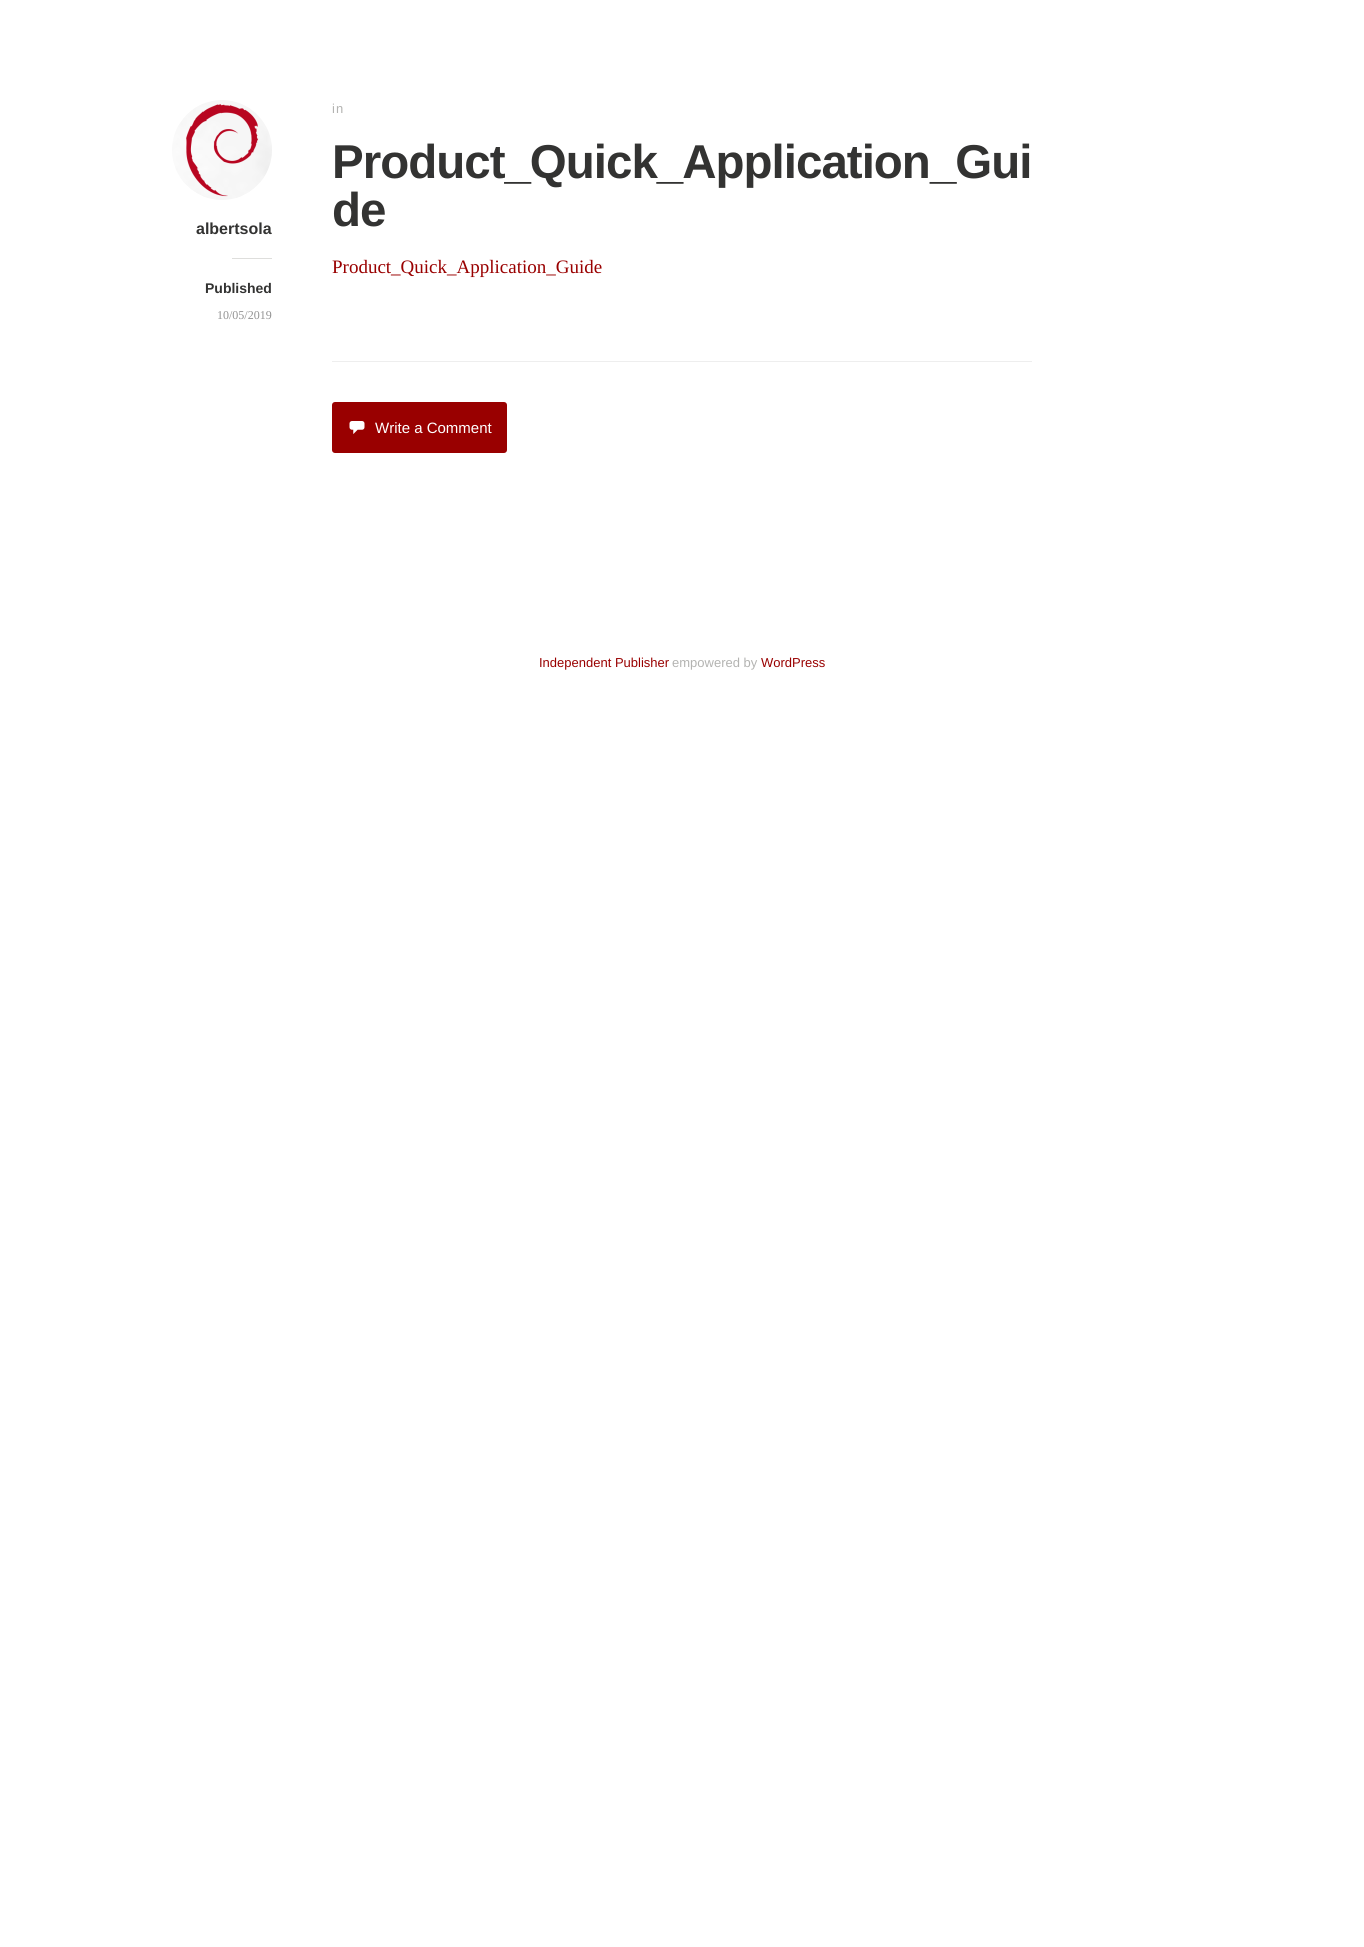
#include <cairo.h>
#include <math.h>
#include <stddef.h>


static void spaced_text(cairo_t *cr, double x, double y, const char *s, double letter, double word) {
    cairo_move_to(cr, x, y);
    while (*s) {
        char ch[5] = {0};
        int n = 0;
        do ch[n++] = *s++; while ((*s & 0xC0) == 0x80);
        cairo_show_text(cr, ch);
        cairo_rel_move_to(cr, letter + word * (*ch == ' '), 0);
    }
}

static void round_rect(cairo_t *cr, double x, double y, double w, double h, double r) {
    cairo_new_sub_path(cr);
    cairo_arc(cr, x + w - r, y + h - r, r, 0, M_PI / 2);
    cairo_arc(cr, x + r, y + h - r, r, M_PI / 2, M_PI);
    cairo_arc(cr, x + r, y + r, r, M_PI, 1.5 * M_PI);
    cairo_arc(cr, x + w - r, y + r, r, 1.5 * M_PI, 2 * M_PI);
    cairo_close_path(cr);
}

static void picture(cairo_t *cr, const char *path, double x, double y, double w, double h) {
    cairo_surface_t *image = cairo_image_surface_create_from_png(path);
    cairo_save(cr);
    cairo_set_source_surface(cr, image, x, y);
    cairo_rectangle(cr, x, y, w, h);
    cairo_fill(cr);
    cairo_restore(cr);
    cairo_surface_destroy(image);
}

int main(void) {
    cairo_surface_t *surface = cairo_image_surface_create(CAIRO_FORMAT_RGB24, 1364, 1947);
    cairo_t *cr = cairo_create(surface);
    cairo_font_options_t *options = cairo_font_options_create();
    cairo_font_options_set_hint_metrics(options, CAIRO_HINT_METRICS_OFF);
    cairo_font_options_set_hint_style(options, CAIRO_HINT_STYLE_NONE);
    cairo_set_font_options(cr, options);
    cairo_set_miter_limit(cr, 4);
    cairo_set_source_rgb(cr, 1, 1, 1);
    cairo_paint(cr);
    picture(cr, "img1.png", 172, 100, 100, 100);
    cairo_select_font_face(cr, "Liberation Sans", CAIRO_FONT_SLANT_NORMAL, CAIRO_FONT_WEIGHT_BOLD);
    cairo_set_font_size(cr, 16);
    cairo_set_source_rgb(cr, 0.2, 0.2, 0.196);
    cairo_move_to(cr, 196, 234);
    cairo_show_text(cr, "albertsola");
    cairo_set_source_rgb(cr, 0.871, 0.871, 0.863);
    cairo_rectangle(cr, 232, 258, 40, 1);
    cairo_fill(cr);
    cairo_set_font_size(cr, 14);
    cairo_set_source_rgb(cr, 0.2, 0.2, 0.196);
    cairo_move_to(cr, 205, 293);
    cairo_show_text(cr, "Published");
    cairo_select_font_face(cr, "Liberation Serif", CAIRO_FONT_SLANT_NORMAL, CAIRO_FONT_WEIGHT_NORMAL);
    cairo_set_font_size(cr, 12);
    cairo_set_source_rgb(cr, 0.573, 0.573, 0.573);
    cairo_move_to(cr, 217, 319);
    cairo_show_text(cr, "10/05/2019");
    cairo_select_font_face(cr, "Liberation Sans", CAIRO_FONT_SLANT_NORMAL, CAIRO_FONT_WEIGHT_NORMAL);
    cairo_set_font_size(cr, 13);
    cairo_set_source_rgb(cr, 0.702, 0.702, 0.694);
    spaced_text(cr, 332, 113, "in", 1, 0);
    cairo_select_font_face(cr, "Liberation Sans", CAIRO_FONT_SLANT_NORMAL, CAIRO_FONT_WEIGHT_BOLD);
    cairo_set_font_size(cr, 47.5);
    cairo_set_source_rgb(cr, 0.2, 0.2, 0.196);
    spaced_text(cr, 332, 178, "Product_Quick_Application_Gui", -1, 0);
    spaced_text(cr, 332, 226, "de", -1, 0);
    cairo_select_font_face(cr, "Liberation Serif", CAIRO_FONT_SLANT_NORMAL, CAIRO_FONT_WEIGHT_NORMAL);
    cairo_set_font_size(cr, 19);
    cairo_set_source_rgb(cr, 0.6, 0, 0);
    cairo_move_to(cr, 332, 273);
    cairo_show_text(cr, "Product_Quick_Application_Guide");
    cairo_set_source_rgb(cr, 0.933, 0.933, 0.933);
    cairo_rectangle(cr, 332, 361, 700, 1);
    cairo_fill(cr);
    cairo_set_source_rgb(cr, 0.6, 0, 0);
    round_rect(cr, 332, 402, 175, 51, 3);
    cairo_fill(cr);
    picture(cr, "img2.png", 349, 421, 16, 13);
    cairo_select_font_face(cr, "Liberation Sans", CAIRO_FONT_SLANT_NORMAL, CAIRO_FONT_WEIGHT_NORMAL);
    cairo_set_font_size(cr, 15);
    cairo_set_source_rgb(cr, 1, 1, 1);
    cairo_move_to(cr, 375, 433);
    cairo_show_text(cr, "Write a Comment");
    cairo_set_font_size(cr, 13);
    cairo_set_source_rgb(cr, 0.6, 0, 0);
    cairo_move_to(cr, 539, 667);
    cairo_show_text(cr, "Independent Publisher");
    cairo_set_source_rgb(cr, 0.702, 0.702, 0.694);
    cairo_move_to(cr, 672, 667);
    cairo_show_text(cr, "empowered by");
    cairo_set_source_rgb(cr, 0.6, 0, 0);
    cairo_move_to(cr, 761, 667);
    cairo_show_text(cr, "WordPress");
    cairo_surface_write_to_png(surface, "page.png");
    cairo_font_options_destroy(options);
    cairo_destroy(cr);
    cairo_surface_destroy(surface);
    return 0;
}
